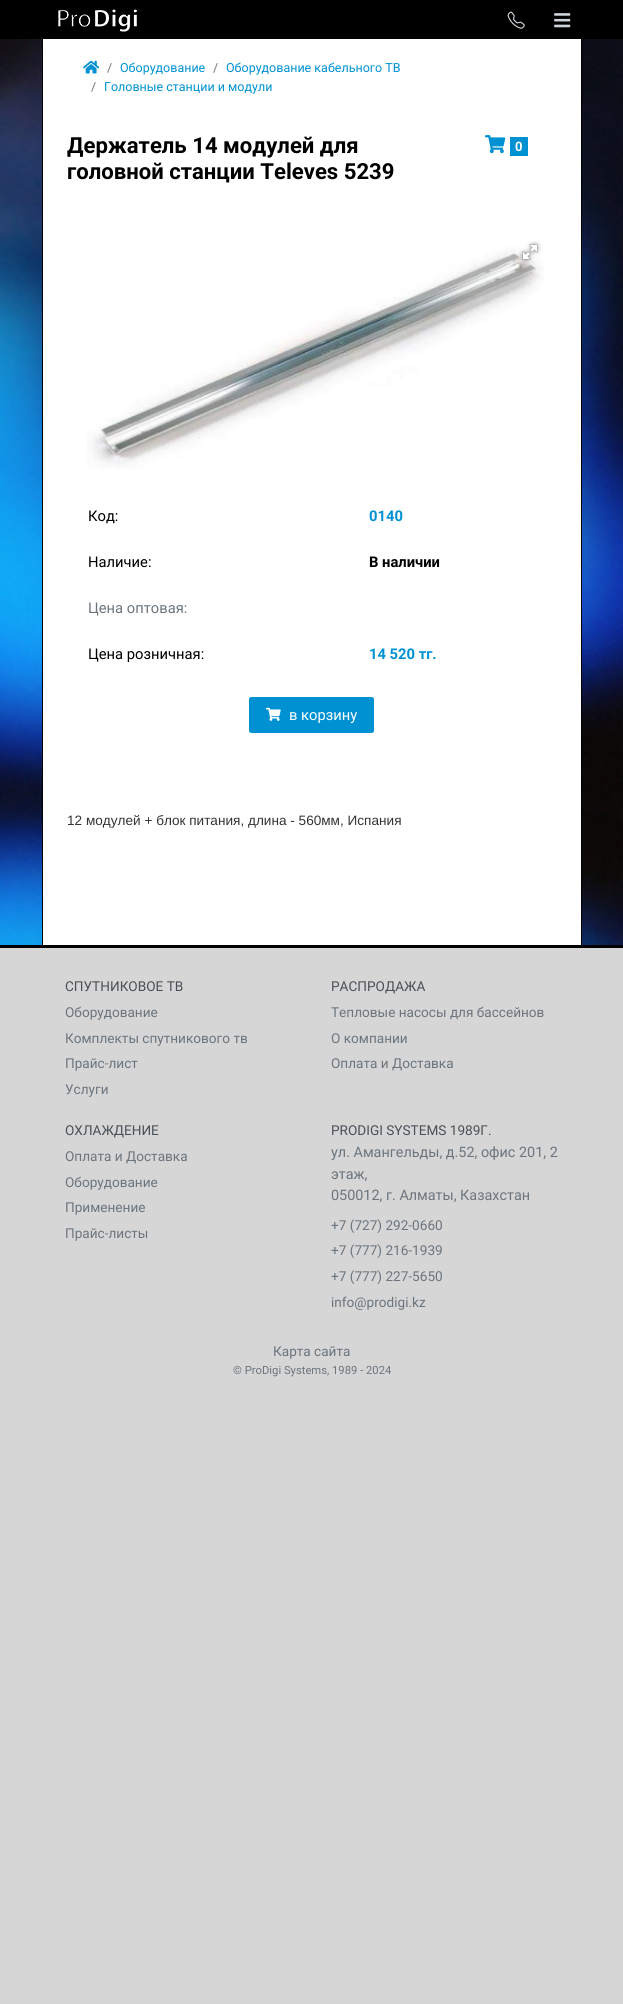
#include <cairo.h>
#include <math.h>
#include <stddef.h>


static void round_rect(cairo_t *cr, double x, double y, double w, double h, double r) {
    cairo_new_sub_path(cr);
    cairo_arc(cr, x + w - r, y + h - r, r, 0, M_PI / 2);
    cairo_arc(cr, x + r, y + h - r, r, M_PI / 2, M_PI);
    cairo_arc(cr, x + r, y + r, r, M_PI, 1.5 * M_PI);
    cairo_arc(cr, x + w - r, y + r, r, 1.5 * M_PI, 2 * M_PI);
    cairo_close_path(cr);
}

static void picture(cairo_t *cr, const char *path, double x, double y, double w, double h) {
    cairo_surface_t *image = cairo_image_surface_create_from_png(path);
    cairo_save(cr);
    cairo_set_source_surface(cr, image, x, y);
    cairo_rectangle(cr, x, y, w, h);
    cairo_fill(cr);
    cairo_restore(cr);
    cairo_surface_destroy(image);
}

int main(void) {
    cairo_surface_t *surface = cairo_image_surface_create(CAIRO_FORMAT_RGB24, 623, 2004);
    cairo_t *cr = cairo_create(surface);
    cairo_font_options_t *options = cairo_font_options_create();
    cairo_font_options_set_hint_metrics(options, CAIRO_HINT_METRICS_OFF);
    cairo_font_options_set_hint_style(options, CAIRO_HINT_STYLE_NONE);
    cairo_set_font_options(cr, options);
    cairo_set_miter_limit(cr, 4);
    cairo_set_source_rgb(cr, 1, 1, 1);
    cairo_paint(cr);
    picture(cr, "img1.png", 0, 39, 623, 906);
    cairo_set_source_rgb(cr, 0, 0, 0);
    cairo_rectangle(cr, 0, 0, 623, 39);
    cairo_fill(cr);
    picture(cr, "img2.png", 58, 9, 79, 23);
    picture(cr, "img3.png", 507, 11, 18, 18);
    picture(cr, "img4.png", 554, 13, 17, 15);
    cairo_set_source_rgb(cr, 1, 1, 1);
    cairo_rectangle(cr, 43, 39, 538, 906);
    cairo_fill(cr);
    cairo_set_source_rgb(cr, 0, 0, 0);
    cairo_rectangle(cr, 581, 39, 1, 906);
    cairo_fill(cr);
    cairo_rectangle(cr, 42, 39, 1, 906);
    cairo_fill(cr);
    picture(cr, "img5.png", 83, 60, 16, 14);
    cairo_select_font_face(cr, "Roboto", CAIRO_FONT_SLANT_NORMAL, CAIRO_FONT_WEIGHT_NORMAL);
    cairo_set_font_size(cr, 12.5);
    cairo_set_source_rgb(cr, 0.424, 0.459, 0.49);
    cairo_move_to(cr, 107, 72);
    cairo_show_text(cr, "/");
    cairo_set_source_rgb(cr, 0, 0.569, 0.824);
    cairo_move_to(cr, 120, 72);
    cairo_show_text(cr, "Оборудование");
    cairo_set_source_rgb(cr, 0.424, 0.459, 0.49);
    cairo_move_to(cr, 213, 72);
    cairo_show_text(cr, "/");
    cairo_set_source_rgb(cr, 0, 0.569, 0.824);
    cairo_move_to(cr, 226, 72);
    cairo_show_text(cr, "Оборудование кабельного ТВ");
    cairo_set_source_rgb(cr, 0.424, 0.459, 0.49);
    cairo_move_to(cr, 91, 91);
    cairo_show_text(cr, "/");
    cairo_set_source_rgb(cr, 0, 0.569, 0.824);
    cairo_move_to(cr, 104, 91);
    cairo_show_text(cr, "Головные станции и модули");
    cairo_select_font_face(cr, "Roboto", CAIRO_FONT_SLANT_NORMAL, CAIRO_FONT_WEIGHT_BOLD);
    cairo_set_font_size(cr, 22.1);
    cairo_set_source_rgb(cr, 0, 0, 0);
    cairo_move_to(cr, 67, 153);
    cairo_show_text(cr, "Держатель 14 модулей для");
    cairo_move_to(cr, 67, 179);
    cairo_show_text(cr, "головной станции Televes 5239");
    picture(cr, "img6.png", 485, 135, 21, 19);
    cairo_set_source_rgb(cr, 0, 0.569, 0.824);
    cairo_rectangle(cr, 510, 137, 18, 19);
    cairo_fill(cr);
    cairo_set_font_size(cr, 13);
    cairo_set_source_rgb(cr, 1, 1, 1);
    cairo_move_to(cr, 515, 151);
    cairo_show_text(cr, "0");
    picture(cr, "img8.png", 87, 247, 457, 222);
    picture(cr, "img7.png", 519, 241, 22, 22);
    cairo_select_font_face(cr, "Roboto", CAIRO_FONT_SLANT_NORMAL, CAIRO_FONT_WEIGHT_NORMAL);
    cairo_set_font_size(cr, 14.75);
    cairo_set_source_rgb(cr, 0, 0, 0);
    cairo_move_to(cr, 88, 521);
    cairo_show_text(cr, "Код:");
    cairo_select_font_face(cr, "Roboto", CAIRO_FONT_SLANT_NORMAL, CAIRO_FONT_WEIGHT_BOLD);
    cairo_set_source_rgb(cr, 0, 0.569, 0.824);
    cairo_move_to(cr, 369, 521);
    cairo_show_text(cr, "0140");
    cairo_select_font_face(cr, "Roboto", CAIRO_FONT_SLANT_NORMAL, CAIRO_FONT_WEIGHT_NORMAL);
    cairo_set_source_rgb(cr, 0, 0, 0);
    cairo_move_to(cr, 88, 567);
    cairo_show_text(cr, "Наличие:");
    cairo_select_font_face(cr, "Roboto", CAIRO_FONT_SLANT_NORMAL, CAIRO_FONT_WEIGHT_BOLD);
    cairo_move_to(cr, 369, 567);
    cairo_show_text(cr, "В наличии");
    cairo_select_font_face(cr, "Roboto", CAIRO_FONT_SLANT_NORMAL, CAIRO_FONT_WEIGHT_NORMAL);
    cairo_set_source_rgb(cr, 0.424, 0.459, 0.49);
    cairo_move_to(cr, 88, 613);
    cairo_show_text(cr, "Цена оптовая:");
    cairo_set_source_rgb(cr, 0, 0, 0);
    cairo_move_to(cr, 88, 659);
    cairo_show_text(cr, "Цена розничная:");
    cairo_select_font_face(cr, "Roboto", CAIRO_FONT_SLANT_NORMAL, CAIRO_FONT_WEIGHT_BOLD);
    cairo_set_source_rgb(cr, 0, 0.569, 0.824);
    cairo_move_to(cr, 369, 659);
    cairo_show_text(cr, "14 520 тг.");
    round_rect(cr, 249.5, 697.5, 124, 35, 2);
    cairo_fill_preserve(cr);
    cairo_set_line_width(cr, 1);
    cairo_stroke(cr);
    picture(cr, "img9.png", 266, 707, 15, 14);
    cairo_select_font_face(cr, "Roboto", CAIRO_FONT_SLANT_NORMAL, CAIRO_FONT_WEIGHT_NORMAL);
    cairo_set_source_rgb(cr, 1, 1, 1);
    cairo_move_to(cr, 289, 720);
    cairo_show_text(cr, "в корзину");
    cairo_select_font_face(cr, "Liberation Sans", CAIRO_FONT_SLANT_NORMAL, CAIRO_FONT_WEIGHT_NORMAL);
    cairo_set_font_size(cr, 13.6);
    cairo_set_source_rgb(cr, 0.2, 0.2, 0.2);
    cairo_move_to(cr, 67, 825);
    cairo_show_text(cr, "12 модулей + блок питания, длина - 560мм, Испания");
    cairo_set_source_rgb(cr, 0.839, 0.839, 0.839);
    cairo_rectangle(cr, 0, 948, 623, 1056);
    cairo_fill(cr);
    cairo_set_source_rgb(cr, 0, 0, 0);
    cairo_rectangle(cr, 0, 945, 623, 3);
    cairo_fill(cr);
    cairo_select_font_face(cr, "Roboto", CAIRO_FONT_SLANT_NORMAL, CAIRO_FONT_WEIGHT_NORMAL);
    cairo_set_source_rgb(cr, 0.286, 0.314, 0.341);
    cairo_move_to(cr, 65, 991);
    cairo_show_text(cr, "СПУТНИКОВОЕ ТВ");
    cairo_set_source_rgb(cr, 0.424, 0.459, 0.49);
    cairo_move_to(cr, 65, 1017);
    cairo_show_text(cr, "Оборудование");
    cairo_move_to(cr, 65, 1043);
    cairo_show_text(cr, "Комплекты спутникового тв");
    cairo_move_to(cr, 65, 1068);
    cairo_show_text(cr, "Прайс-лист");
    cairo_move_to(cr, 65, 1094);
    cairo_show_text(cr, "Услуги");
    cairo_set_source_rgb(cr, 0.286, 0.314, 0.341);
    cairo_move_to(cr, 331, 991);
    cairo_show_text(cr, "РАСПРОДАЖА");
    cairo_set_source_rgb(cr, 0.424, 0.459, 0.49);
    cairo_move_to(cr, 331, 1017);
    cairo_show_text(cr, "Тепловые насосы для бассейнов");
    cairo_move_to(cr, 331, 1043);
    cairo_show_text(cr, "О компании");
    cairo_move_to(cr, 331, 1068);
    cairo_show_text(cr, "Оплата и Доставка");
    cairo_set_source_rgb(cr, 0.286, 0.314, 0.341);
    cairo_move_to(cr, 65, 1135);
    cairo_show_text(cr, "ОХЛАЖДЕНИЕ");
    cairo_set_source_rgb(cr, 0.424, 0.459, 0.49);
    cairo_move_to(cr, 65, 1161);
    cairo_show_text(cr, "Оплата и Доставка");
    cairo_move_to(cr, 65, 1187);
    cairo_show_text(cr, "Оборудование");
    cairo_move_to(cr, 65, 1212);
    cairo_show_text(cr, "Применение");
    cairo_move_to(cr, 65, 1238);
    cairo_show_text(cr, "Прайс-листы");
    cairo_set_source_rgb(cr, 0.286, 0.314, 0.341);
    cairo_move_to(cr, 331, 1135);
    cairo_show_text(cr, "PRODIGI SYSTEMS 1989Г.");
    cairo_set_font_size(cr, 14.4);
    cairo_set_source_rgb(cr, 0.424, 0.459, 0.49);
    cairo_move_to(cr, 331, 1157);
    cairo_show_text(cr, "ул. Амангельды, д.52, офис 201, 2");
    cairo_move_to(cr, 331, 1179);
    cairo_show_text(cr, "этаж,");
    cairo_move_to(cr, 331, 1200);
    cairo_show_text(cr, "050012, г. Алматы, Казахстан");
    cairo_set_font_size(cr, 13.6);
    cairo_move_to(cr, 331, 1230);
    cairo_show_text(cr, "+7 (727) 292-0660");
    cairo_move_to(cr, 331, 1255);
    cairo_show_text(cr, "+7 (777) 216-1939");
    cairo_move_to(cr, 331, 1281);
    cairo_show_text(cr, "+7 (777) 227-5650");
    cairo_move_to(cr, 331, 1307);
    cairo_show_text(cr, "info@prodigi.kz");
    cairo_move_to(cr, 273, 1356);
    cairo_show_text(cr, "Карта сайта");
    cairo_set_font_size(cr, 11.25);
    cairo_move_to(cr, 233, 1374);
    cairo_show_text(cr, "© ProDigi Systems, 1989 - 2024");
    cairo_surface_write_to_png(surface, "page.png");
    cairo_font_options_destroy(options);
    cairo_destroy(cr);
    cairo_surface_destroy(surface);
    return 0;
}
